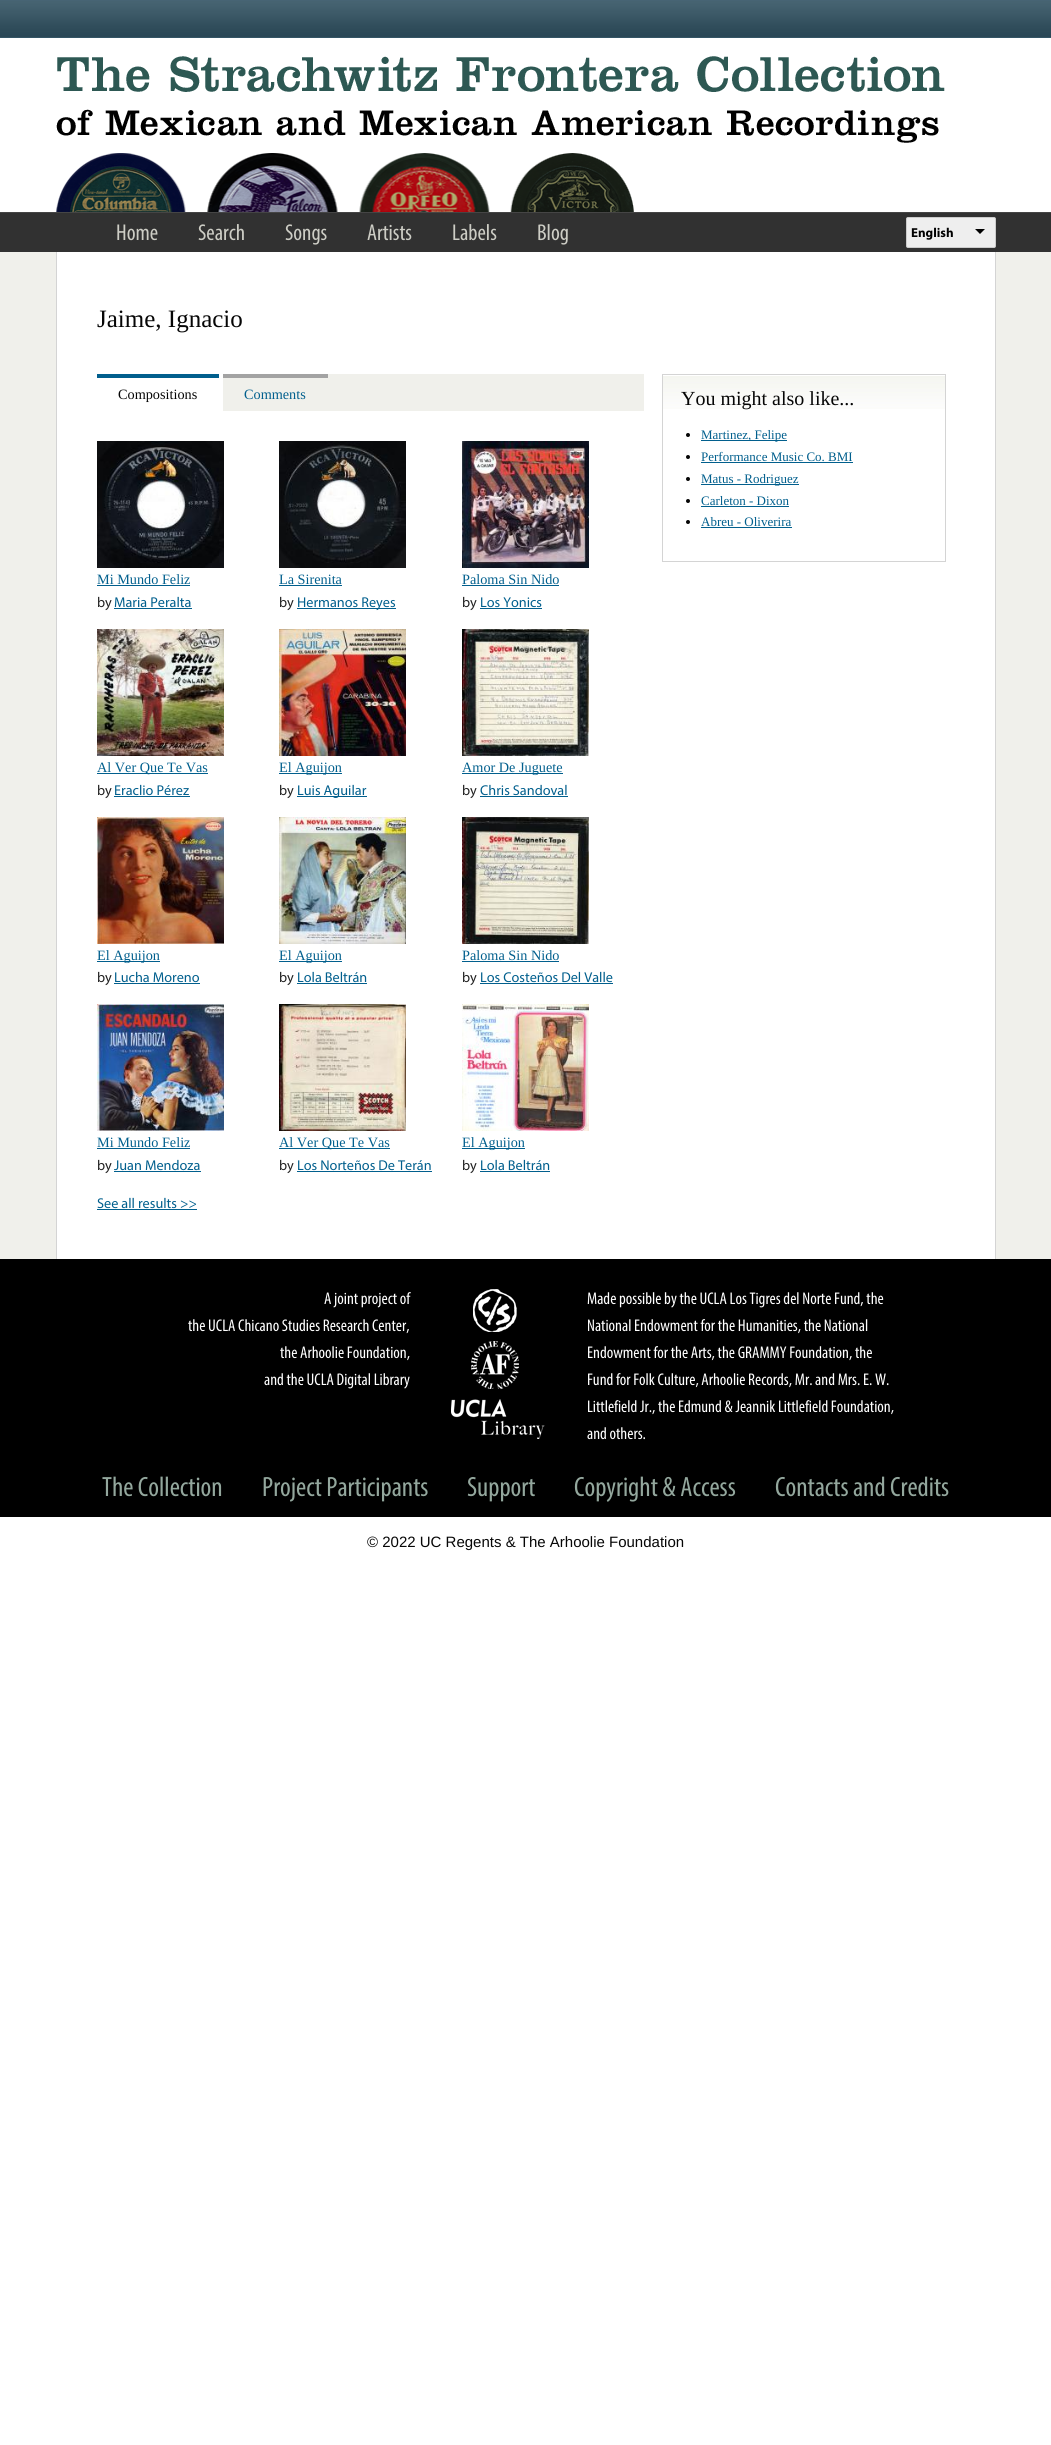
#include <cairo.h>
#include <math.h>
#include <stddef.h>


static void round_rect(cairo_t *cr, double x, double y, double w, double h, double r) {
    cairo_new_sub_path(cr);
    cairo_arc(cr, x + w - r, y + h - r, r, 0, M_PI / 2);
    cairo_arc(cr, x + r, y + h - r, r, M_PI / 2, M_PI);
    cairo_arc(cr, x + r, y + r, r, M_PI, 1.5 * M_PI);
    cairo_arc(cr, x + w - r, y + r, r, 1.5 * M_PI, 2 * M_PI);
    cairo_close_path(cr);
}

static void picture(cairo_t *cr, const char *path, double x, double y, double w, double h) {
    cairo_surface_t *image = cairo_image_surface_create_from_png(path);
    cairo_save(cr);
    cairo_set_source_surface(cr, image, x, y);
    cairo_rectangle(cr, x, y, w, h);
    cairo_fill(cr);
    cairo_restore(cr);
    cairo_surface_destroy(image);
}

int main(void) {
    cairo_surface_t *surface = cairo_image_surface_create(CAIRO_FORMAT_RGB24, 1051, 2445);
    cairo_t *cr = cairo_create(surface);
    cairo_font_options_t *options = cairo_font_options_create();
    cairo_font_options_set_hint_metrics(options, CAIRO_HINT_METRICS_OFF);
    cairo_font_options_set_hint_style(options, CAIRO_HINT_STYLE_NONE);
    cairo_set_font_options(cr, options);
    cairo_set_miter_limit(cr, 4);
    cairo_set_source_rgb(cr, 1, 1, 1);
    cairo_paint(cr);
    picture(cr, "img1.png", 0, 0, 1051, 38);
    picture(cr, "img2.png", 56, 153, 578, 59);
    picture(cr, "img3.png", 56, 56, 889, 87);
    cairo_set_source_rgb(cr, 0.192, 0.192, 0.192);
    cairo_rectangle(cr, 0, 213, 1051, 39);
    cairo_fill(cr);
    cairo_set_source_rgb(cr, 0.271, 0.271, 0.271);
    cairo_rectangle(cr, 0, 212, 1051, 1);
    cairo_fill(cr);
    cairo_select_font_face(cr, "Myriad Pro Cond", CAIRO_FONT_SLANT_NORMAL, CAIRO_FONT_WEIGHT_NORMAL);
    cairo_set_font_size(cr, 23);
    cairo_set_source_rgb(cr, 0.804, 0.804, 0.773);
    cairo_move_to(cr, 116, 240);
    cairo_show_text(cr, "Home");
    cairo_move_to(cr, 198, 240);
    cairo_show_text(cr, "Search");
    cairo_move_to(cr, 285, 240);
    cairo_show_text(cr, "Songs");
    cairo_move_to(cr, 367, 240);
    cairo_show_text(cr, "Artists");
    cairo_move_to(cr, 452, 240);
    cairo_show_text(cr, "Labels");
    cairo_move_to(cr, 537, 240);
    cairo_show_text(cr, "Blog");
    cairo_set_source_rgb(cr, 0.933, 0.933, 0.933);
    round_rect(cr, 906.5, 217.5, 89, 30, 1.5);
    cairo_fill_preserve(cr);
    cairo_set_source_rgb(cr, 0.8, 0.8, 0.8);
    cairo_set_line_width(cr, 1);
    cairo_stroke(cr);
    cairo_select_font_face(cr, "Myriad", CAIRO_FONT_SLANT_NORMAL, CAIRO_FONT_WEIGHT_BOLD);
    cairo_set_font_size(cr, 13);
    cairo_set_source_rgb(cr, 0, 0, 0);
    cairo_move_to(cr, 911, 237);
    cairo_show_text(cr, "English");
    cairo_new_path(cr);
    cairo_move_to(cr, 975, 229);
    cairo_line_to(cr, 985, 229);
    cairo_line_to(cr, 980, 234);
    cairo_close_path(cr);
    cairo_fill(cr);
    cairo_set_source_rgb(cr, 0.941, 0.941, 0.918);
    cairo_rectangle(cr, 0, 252, 1051, 1007);
    cairo_fill(cr);
    cairo_set_source_rgb(cr, 1, 1, 1);
    cairo_rectangle(cr, 57, 252, 938, 1007);
    cairo_fill(cr);
    cairo_set_source_rgb(cr, 0.831, 0.831, 0.831);
    cairo_rectangle(cr, 995, 252, 1, 1007);
    cairo_fill(cr);
    cairo_rectangle(cr, 56, 252, 1, 1007);
    cairo_fill(cr);
    cairo_select_font_face(cr, "Liberation Serif", CAIRO_FONT_SLANT_NORMAL, CAIRO_FONT_WEIGHT_NORMAL);
    cairo_set_font_size(cr, 25);
    cairo_set_source_rgb(cr, 0.024, 0.024, 0.024);
    cairo_move_to(cr, 97, 327);
    cairo_show_text(cr, "Jaime, Ignacio");
    cairo_set_source_rgb(cr, 0.941, 0.941, 0.918);
    cairo_rectangle(cr, 223, 374, 421, 37);
    cairo_fill(cr);
    cairo_set_source_rgb(cr, 0.004, 0.373, 0.553);
    cairo_rectangle(cr, 97, 374, 122, 4);
    cairo_fill(cr);
    cairo_set_font_size(cr, 14.25);
    cairo_set_source_rgb(cr, 0.024, 0.024, 0.024);
    cairo_move_to(cr, 118, 399);
    cairo_show_text(cr, "Compositions");
    cairo_set_source_rgb(cr, 0.639, 0.639, 0.639);
    cairo_rectangle(cr, 223, 374, 105, 4);
    cairo_fill(cr);
    cairo_set_source_rgb(cr, 0.004, 0.373, 0.553);
    cairo_move_to(cr, 244, 399);
    cairo_show_text(cr, "Comments");
    picture(cr, "img4.png", 97, 441, 127, 127);
    cairo_move_to(cr, 97, 584);
    cairo_show_text(cr, "Mi Mundo Feliz");
    cairo_rectangle(cr, 97, 585, 93, 1);
    cairo_fill(cr);
    cairo_select_font_face(cr, "Myriad", CAIRO_FONT_SLANT_NORMAL, CAIRO_FONT_WEIGHT_NORMAL);
    cairo_set_source_rgb(cr, 0.133, 0.133, 0.133);
    cairo_move_to(cr, 97, 607);
    cairo_show_text(cr, "by");
    cairo_set_source_rgb(cr, 0.004, 0.373, 0.553);
    cairo_rectangle(cr, 114, 608, 78, 1);
    cairo_fill(cr);
    cairo_move_to(cr, 114, 607);
    cairo_show_text(cr, "Maria Peralta");
    picture(cr, "img5.png", 279, 441, 127, 127);
    cairo_select_font_face(cr, "Liberation Serif", CAIRO_FONT_SLANT_NORMAL, CAIRO_FONT_WEIGHT_NORMAL);
    cairo_move_to(cr, 279, 584);
    cairo_show_text(cr, "La Sirenita");
    cairo_rectangle(cr, 279, 585, 63, 1);
    cairo_fill(cr);
    cairo_select_font_face(cr, "Myriad", CAIRO_FONT_SLANT_NORMAL, CAIRO_FONT_WEIGHT_NORMAL);
    cairo_set_source_rgb(cr, 0.133, 0.133, 0.133);
    cairo_move_to(cr, 279, 607);
    cairo_show_text(cr, "by");
    cairo_set_source_rgb(cr, 0.004, 0.373, 0.553);
    cairo_rectangle(cr, 297, 608, 99, 1);
    cairo_fill(cr);
    cairo_move_to(cr, 297, 607);
    cairo_show_text(cr, "Hermanos Reyes");
    picture(cr, "img6.png", 462, 441, 127, 127);
    cairo_select_font_face(cr, "Liberation Serif", CAIRO_FONT_SLANT_NORMAL, CAIRO_FONT_WEIGHT_NORMAL);
    cairo_move_to(cr, 462, 584);
    cairo_show_text(cr, "Paloma Sin Nido");
    cairo_rectangle(cr, 462, 585, 97, 1);
    cairo_fill(cr);
    cairo_select_font_face(cr, "Myriad", CAIRO_FONT_SLANT_NORMAL, CAIRO_FONT_WEIGHT_NORMAL);
    cairo_set_source_rgb(cr, 0.133, 0.133, 0.133);
    cairo_move_to(cr, 462, 607);
    cairo_show_text(cr, "by");
    cairo_set_source_rgb(cr, 0.004, 0.373, 0.553);
    cairo_move_to(cr, 480, 607);
    cairo_show_text(cr, "Los Yonics");
    cairo_rectangle(cr, 480, 608, 62, 1);
    cairo_fill(cr);
    picture(cr, "img7.png", 97, 629, 127, 127);
    cairo_rectangle(cr, 97, 773, 111, 1);
    cairo_fill(cr);
    cairo_select_font_face(cr, "Liberation Serif", CAIRO_FONT_SLANT_NORMAL, CAIRO_FONT_WEIGHT_NORMAL);
    cairo_move_to(cr, 97, 772);
    cairo_show_text(cr, "Al Ver Que Te Vas");
    cairo_select_font_face(cr, "Myriad", CAIRO_FONT_SLANT_NORMAL, CAIRO_FONT_WEIGHT_NORMAL);
    cairo_set_source_rgb(cr, 0.133, 0.133, 0.133);
    cairo_move_to(cr, 97, 795);
    cairo_show_text(cr, "by");
    cairo_set_source_rgb(cr, 0.004, 0.373, 0.553);
    cairo_rectangle(cr, 114, 796, 76, 1);
    cairo_fill(cr);
    cairo_move_to(cr, 114, 795);
    cairo_show_text(cr, "Eraclio Pérez");
    picture(cr, "img8.png", 279, 629, 127, 127);
    cairo_rectangle(cr, 279, 773, 63, 1);
    cairo_fill(cr);
    cairo_select_font_face(cr, "Liberation Serif", CAIRO_FONT_SLANT_NORMAL, CAIRO_FONT_WEIGHT_NORMAL);
    cairo_move_to(cr, 279, 772);
    cairo_show_text(cr, "El Aguijon");
    cairo_select_font_face(cr, "Myriad", CAIRO_FONT_SLANT_NORMAL, CAIRO_FONT_WEIGHT_NORMAL);
    cairo_set_source_rgb(cr, 0.133, 0.133, 0.133);
    cairo_move_to(cr, 279, 795);
    cairo_show_text(cr, "by");
    cairo_set_source_rgb(cr, 0.004, 0.373, 0.553);
    cairo_rectangle(cr, 297, 796, 70, 1);
    cairo_fill(cr);
    cairo_move_to(cr, 297, 795);
    cairo_show_text(cr, "Luis Aguilar");
    picture(cr, "img9.png", 462, 629, 127, 127);
    cairo_rectangle(cr, 462, 773, 101, 1);
    cairo_fill(cr);
    cairo_select_font_face(cr, "Liberation Serif", CAIRO_FONT_SLANT_NORMAL, CAIRO_FONT_WEIGHT_NORMAL);
    cairo_move_to(cr, 462, 772);
    cairo_show_text(cr, "Amor De Juguete");
    cairo_select_font_face(cr, "Myriad", CAIRO_FONT_SLANT_NORMAL, CAIRO_FONT_WEIGHT_NORMAL);
    cairo_set_source_rgb(cr, 0.133, 0.133, 0.133);
    cairo_move_to(cr, 462, 795);
    cairo_show_text(cr, "by");
    cairo_set_source_rgb(cr, 0.004, 0.373, 0.553);
    cairo_rectangle(cr, 480, 796, 88, 1);
    cairo_fill(cr);
    cairo_move_to(cr, 480, 795);
    cairo_show_text(cr, "Chris Sandoval");
    picture(cr, "img10.png", 97, 817, 127, 127);
    cairo_rectangle(cr, 97, 961, 63, 1);
    cairo_fill(cr);
    cairo_select_font_face(cr, "Liberation Serif", CAIRO_FONT_SLANT_NORMAL, CAIRO_FONT_WEIGHT_NORMAL);
    cairo_move_to(cr, 97, 960);
    cairo_show_text(cr, "El Aguijon");
    cairo_select_font_face(cr, "Myriad", CAIRO_FONT_SLANT_NORMAL, CAIRO_FONT_WEIGHT_NORMAL);
    cairo_set_source_rgb(cr, 0.133, 0.133, 0.133);
    cairo_move_to(cr, 97, 982);
    cairo_show_text(cr, "by");
    cairo_set_source_rgb(cr, 0.004, 0.373, 0.553);
    cairo_rectangle(cr, 114, 983, 86, 1);
    cairo_fill(cr);
    cairo_move_to(cr, 114, 982);
    cairo_show_text(cr, "Lucha Moreno");
    picture(cr, "img11.png", 279, 817, 127, 127);
    cairo_rectangle(cr, 279, 961, 63, 1);
    cairo_fill(cr);
    cairo_select_font_face(cr, "Liberation Serif", CAIRO_FONT_SLANT_NORMAL, CAIRO_FONT_WEIGHT_NORMAL);
    cairo_move_to(cr, 279, 960);
    cairo_show_text(cr, "El Aguijon");
    cairo_select_font_face(cr, "Myriad", CAIRO_FONT_SLANT_NORMAL, CAIRO_FONT_WEIGHT_NORMAL);
    cairo_set_source_rgb(cr, 0.133, 0.133, 0.133);
    cairo_move_to(cr, 279, 982);
    cairo_show_text(cr, "by");
    cairo_set_source_rgb(cr, 0.004, 0.373, 0.553);
    cairo_rectangle(cr, 297, 983, 70, 1);
    cairo_fill(cr);
    cairo_move_to(cr, 297, 982);
    cairo_show_text(cr, "Lola Beltrán");
    picture(cr, "img12.png", 462, 817, 127, 127);
    cairo_select_font_face(cr, "Liberation Serif", CAIRO_FONT_SLANT_NORMAL, CAIRO_FONT_WEIGHT_NORMAL);
    cairo_move_to(cr, 462, 960);
    cairo_show_text(cr, "Paloma Sin Nido");
    cairo_rectangle(cr, 462, 961, 97, 1);
    cairo_fill(cr);
    cairo_select_font_face(cr, "Myriad", CAIRO_FONT_SLANT_NORMAL, CAIRO_FONT_WEIGHT_NORMAL);
    cairo_set_source_rgb(cr, 0.133, 0.133, 0.133);
    cairo_move_to(cr, 462, 982);
    cairo_show_text(cr, "by");
    cairo_set_source_rgb(cr, 0.004, 0.373, 0.553);
    cairo_rectangle(cr, 480, 983, 133, 1);
    cairo_fill(cr);
    cairo_move_to(cr, 480, 982);
    cairo_show_text(cr, "Los Costeños Del Valle");
    picture(cr, "img13.png", 97, 1004, 127, 127);
    cairo_select_font_face(cr, "Liberation Serif", CAIRO_FONT_SLANT_NORMAL, CAIRO_FONT_WEIGHT_NORMAL);
    cairo_move_to(cr, 97, 1147);
    cairo_show_text(cr, "Mi Mundo Feliz");
    cairo_rectangle(cr, 97, 1148, 93, 1);
    cairo_fill(cr);
    cairo_select_font_face(cr, "Myriad", CAIRO_FONT_SLANT_NORMAL, CAIRO_FONT_WEIGHT_NORMAL);
    cairo_set_source_rgb(cr, 0.133, 0.133, 0.133);
    cairo_move_to(cr, 97, 1170);
    cairo_show_text(cr, "by");
    cairo_set_source_rgb(cr, 0.004, 0.373, 0.553);
    cairo_rectangle(cr, 114, 1171, 87, 1);
    cairo_fill(cr);
    cairo_move_to(cr, 114, 1170);
    cairo_show_text(cr, "Juan Mendoza");
    picture(cr, "img14.png", 279, 1004, 127, 127);
    cairo_rectangle(cr, 279, 1148, 111, 1);
    cairo_fill(cr);
    cairo_select_font_face(cr, "Liberation Serif", CAIRO_FONT_SLANT_NORMAL, CAIRO_FONT_WEIGHT_NORMAL);
    cairo_move_to(cr, 279, 1147);
    cairo_show_text(cr, "Al Ver Que Te Vas");
    cairo_select_font_face(cr, "Myriad", CAIRO_FONT_SLANT_NORMAL, CAIRO_FONT_WEIGHT_NORMAL);
    cairo_set_source_rgb(cr, 0.133, 0.133, 0.133);
    cairo_move_to(cr, 279, 1170);
    cairo_show_text(cr, "by");
    cairo_set_source_rgb(cr, 0.004, 0.373, 0.553);
    cairo_move_to(cr, 297, 1170);
    cairo_show_text(cr, "Los Norteños De Terán");
    cairo_rectangle(cr, 297, 1171, 135, 1);
    cairo_fill(cr);
    picture(cr, "img15.png", 462, 1004, 127, 127);
    cairo_rectangle(cr, 462, 1148, 63, 1);
    cairo_fill(cr);
    cairo_select_font_face(cr, "Liberation Serif", CAIRO_FONT_SLANT_NORMAL, CAIRO_FONT_WEIGHT_NORMAL);
    cairo_move_to(cr, 462, 1147);
    cairo_show_text(cr, "El Aguijon");
    cairo_select_font_face(cr, "Myriad", CAIRO_FONT_SLANT_NORMAL, CAIRO_FONT_WEIGHT_NORMAL);
    cairo_set_source_rgb(cr, 0.133, 0.133, 0.133);
    cairo_move_to(cr, 462, 1170);
    cairo_show_text(cr, "by");
    cairo_set_source_rgb(cr, 0.004, 0.373, 0.553);
    cairo_rectangle(cr, 480, 1171, 70, 1);
    cairo_fill(cr);
    cairo_move_to(cr, 480, 1170);
    cairo_show_text(cr, "Lola Beltrán");
    cairo_move_to(cr, 97, 1208);
    cairo_show_text(cr, "See all results >>");
    cairo_rectangle(cr, 97, 1209, 100, 1);
    cairo_fill(cr);
    picture(cr, "img16.png", 663, 376, 282, 33);
    cairo_rectangle(cr, 662.5, 374.5, 283, 187);
    cairo_set_source_rgb(cr, 0.831, 0.831, 0.831);
    cairo_stroke(cr);
    cairo_select_font_face(cr, "Liberation Serif", CAIRO_FONT_SLANT_NORMAL, CAIRO_FONT_WEIGHT_NORMAL);
    cairo_set_font_size(cr, 20);
    cairo_set_source_rgb(cr, 0.024, 0.024, 0.024);
    cairo_move_to(cr, 681, 405);
    cairo_show_text(cr, "You might also like...");
    cairo_new_path(cr);
    cairo_arc(cr, 688, 435, 2, 0, 2 * M_PI);
    cairo_fill(cr);
    cairo_set_source_rgb(cr, 0.004, 0.373, 0.553);
    cairo_rectangle(cr, 701, 440, 86, 1);
    cairo_fill(cr);
    cairo_set_font_size(cr, 13);
    cairo_move_to(cr, 701, 439);
    cairo_show_text(cr, "Martinez, Felipe");
    cairo_set_source_rgb(cr, 0.024, 0.024, 0.024);
    cairo_new_path(cr);
    cairo_arc(cr, 688, 457, 2, 0, 2 * M_PI);
    cairo_fill(cr);
    cairo_set_source_rgb(cr, 0.004, 0.373, 0.553);
    cairo_move_to(cr, 701, 461);
    cairo_show_text(cr, "Performance Music Co. BMI");
    cairo_rectangle(cr, 701, 462, 152, 1);
    cairo_fill(cr);
    cairo_set_source_rgb(cr, 0.024, 0.024, 0.024);
    cairo_arc(cr, 688, 479, 2, 0, 2 * M_PI);
    cairo_fill(cr);
    cairo_set_source_rgb(cr, 0.004, 0.373, 0.553);
    cairo_rectangle(cr, 701, 484, 98, 1);
    cairo_fill(cr);
    cairo_move_to(cr, 701, 483);
    cairo_show_text(cr, "Matus - Rodriguez");
    cairo_set_source_rgb(cr, 0.024, 0.024, 0.024);
    cairo_new_path(cr);
    cairo_arc(cr, 688, 501, 2, 0, 2 * M_PI);
    cairo_fill(cr);
    cairo_set_source_rgb(cr, 0.004, 0.373, 0.553);
    cairo_move_to(cr, 701, 505);
    cairo_show_text(cr, "Carleton - Dixon");
    cairo_rectangle(cr, 701, 506, 88, 1);
    cairo_fill(cr);
    cairo_set_source_rgb(cr, 0.024, 0.024, 0.024);
    cairo_arc(cr, 688, 522, 2, 0, 2 * M_PI);
    cairo_fill(cr);
    cairo_set_source_rgb(cr, 0.004, 0.373, 0.553);
    cairo_move_to(cr, 701, 526);
    cairo_show_text(cr, "Abreu - Oliverira");
    cairo_rectangle(cr, 701, 527, 91, 1);
    cairo_fill(cr);
    cairo_set_source_rgb(cr, 0, 0, 0);
    cairo_rectangle(cr, 0, 1259, 1051, 258);
    cairo_fill(cr);
    cairo_select_font_face(cr, "Myriad Pro Cond", CAIRO_FONT_SLANT_NORMAL, CAIRO_FONT_WEIGHT_NORMAL);
    cairo_set_font_size(cr, 17);
    cairo_set_source_rgb(cr, 1, 1, 1);
    cairo_move_to(cr, 324, 1304);
    cairo_show_text(cr, "A joint project of");
    cairo_move_to(cr, 188, 1331);
    cairo_show_text(cr, "the UCLA Chicano Studies Research Center,");
    cairo_move_to(cr, 280, 1358);
    cairo_show_text(cr, "the Arhoolie Foundation,");
    cairo_move_to(cr, 264, 1385);
    cairo_show_text(cr, "and the UCLA Digital Library");
    picture(cr, "img17.png", 473, 1289, 44, 43);
    picture(cr, "img18.png", 471, 1341, 48, 48);
    picture(cr, "img19.png", 451, 1399, 94, 40);
    cairo_move_to(cr, 587, 1304);
    cairo_show_text(cr, "Made possible by the UCLA Los Tigres del Norte Fund, the");
    cairo_move_to(cr, 587, 1331);
    cairo_show_text(cr, "National Endowment for the Humanities, the National");
    cairo_move_to(cr, 587, 1358);
    cairo_show_text(cr, "Endowment for the Arts, the GRAMMY Foundation, the");
    cairo_move_to(cr, 587, 1385);
    cairo_show_text(cr, "Fund for Folk Culture, Arhoolie Records, Mr. and Mrs. E. W.");
    cairo_move_to(cr, 587, 1412);
    cairo_show_text(cr, "Littlefield Jr., the Edmund & Jeannik Littlefield Foundation,");
    cairo_move_to(cr, 587, 1439);
    cairo_show_text(cr, "and others.");
    cairo_set_font_size(cr, 28);
    cairo_set_source_rgb(cr, 0.576, 0.655, 0.616);
    cairo_move_to(cr, 102, 1496);
    cairo_show_text(cr, "The Collection");
    cairo_move_to(cr, 262, 1496);
    cairo_show_text(cr, "Project Participants");
    cairo_move_to(cr, 467, 1496);
    cairo_show_text(cr, "Support");
    cairo_move_to(cr, 574, 1496);
    cairo_show_text(cr, "Copyright & Access");
    cairo_move_to(cr, 775, 1496);
    cairo_show_text(cr, "Contacts and Credits");
    cairo_select_font_face(cr, "Liberation Sans", CAIRO_FONT_SLANT_NORMAL, CAIRO_FONT_WEIGHT_NORMAL);
    cairo_set_font_size(cr, 15);
    cairo_set_source_rgb(cr, 0.024, 0.024, 0.024);
    cairo_move_to(cr, 367, 1547);
    cairo_show_text(cr, "© 2022 UC Regents & The Arhoolie Foundation");
    cairo_surface_write_to_png(surface, "page.png");
    cairo_font_options_destroy(options);
    cairo_destroy(cr);
    cairo_surface_destroy(surface);
    return 0;
}
